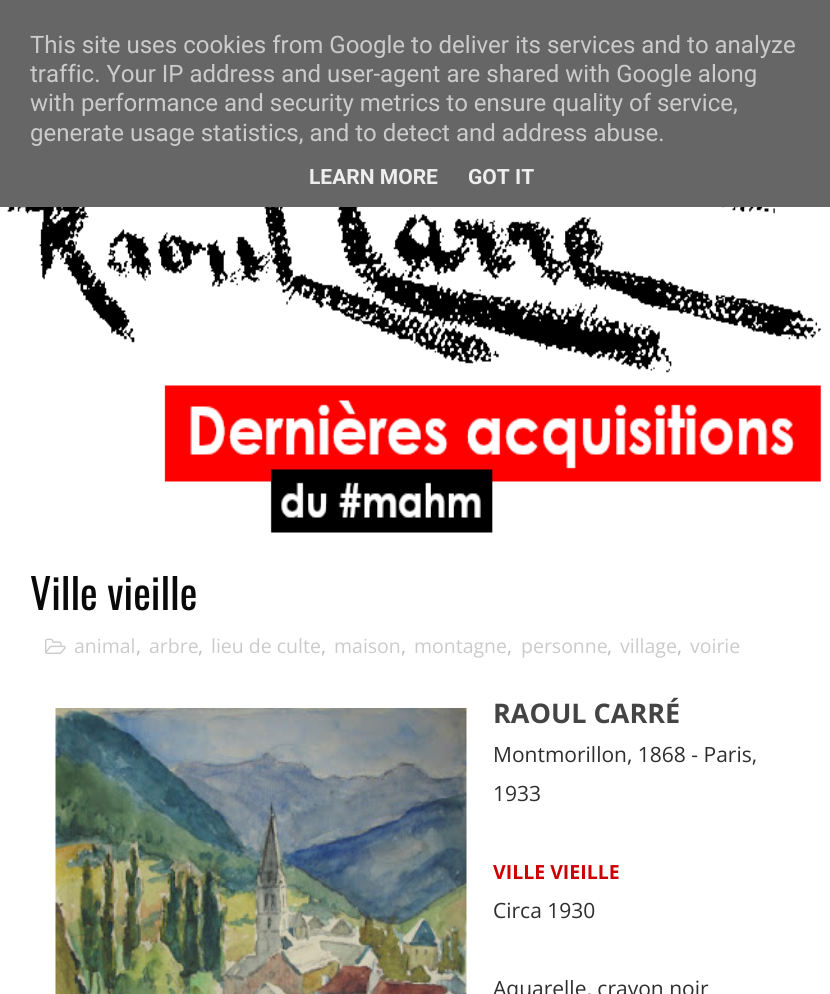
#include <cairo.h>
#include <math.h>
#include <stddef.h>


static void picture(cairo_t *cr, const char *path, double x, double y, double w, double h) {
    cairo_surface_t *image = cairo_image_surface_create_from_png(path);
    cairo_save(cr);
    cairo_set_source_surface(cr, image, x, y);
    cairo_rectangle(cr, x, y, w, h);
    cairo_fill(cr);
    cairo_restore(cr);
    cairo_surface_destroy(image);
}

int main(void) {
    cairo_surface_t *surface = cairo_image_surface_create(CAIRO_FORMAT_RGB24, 830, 994);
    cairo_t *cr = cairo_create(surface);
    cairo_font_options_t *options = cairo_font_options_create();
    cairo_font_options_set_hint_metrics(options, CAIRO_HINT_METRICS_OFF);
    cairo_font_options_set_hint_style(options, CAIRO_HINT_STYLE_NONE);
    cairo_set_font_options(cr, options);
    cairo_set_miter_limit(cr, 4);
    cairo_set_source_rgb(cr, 1, 1, 1);
    cairo_paint(cr);
    cairo_set_source_rgb(cr, 0.4, 0.4, 0.4);
    cairo_rectangle(cr, 0, 0, 830, 207);
    cairo_fill(cr);
    cairo_select_font_face(cr, "Roboto", CAIRO_FONT_SLANT_NORMAL, CAIRO_FONT_WEIGHT_NORMAL);
    cairo_set_font_size(cr, 24);
    cairo_set_source_rgb(cr, 0.796, 0.796, 0.796);
    cairo_move_to(cr, 30, 53);
    cairo_show_text(cr, "This site uses cookies from Google to deliver its services and to analyze");
    cairo_move_to(cr, 30, 82);
    cairo_show_text(cr, "traffic. Your IP address and user-agent are shared with Google along");
    cairo_move_to(cr, 30, 111);
    cairo_show_text(cr, "with performance and security metrics to ensure quality of service,");
    cairo_move_to(cr, 30, 141);
    cairo_show_text(cr, "generate usage statistics, and to detect and address abuse.");
    cairo_select_font_face(cr, "Roboto", CAIRO_FONT_SLANT_NORMAL, CAIRO_FONT_WEIGHT_BOLD);
    cairo_set_font_size(cr, 21);
    cairo_set_source_rgb(cr, 0.933, 0.933, 0.933);
    cairo_move_to(cr, 309, 184);
    cairo_show_text(cr, "LEARN MORE");
    cairo_move_to(cr, 468, 184);
    cairo_show_text(cr, "GOT IT");
    picture(cr, "img1.png", 7, 207, 814, 326);
    cairo_select_font_face(cr, "Oswald", CAIRO_FONT_SLANT_NORMAL, CAIRO_FONT_WEIGHT_NORMAL);
    cairo_set_font_size(cr, 42);
    cairo_set_source_rgb(cr, 0.039, 0.039, 0.039);
    cairo_move_to(cr, 30, 610);
    cairo_show_text(cr, "Ville vieille");
    picture(cr, "img2.png", 45, 638, 21, 16);
    cairo_select_font_face(cr, "Open Sans", CAIRO_FONT_SLANT_NORMAL, CAIRO_FONT_WEIGHT_NORMAL);
    cairo_set_font_size(cr, 19.5);
    cairo_set_source_rgb(cr, 0.796, 0.796, 0.796);
    cairo_move_to(cr, 74, 653);
    cairo_show_text(cr, "animal");
    cairo_set_source_rgb(cr, 0.741, 0.741, 0.741);
    cairo_move_to(cr, 136, 653);
    cairo_show_text(cr, ",");
    cairo_set_source_rgb(cr, 0.796, 0.796, 0.796);
    cairo_move_to(cr, 149, 653);
    cairo_show_text(cr, "arbre");
    cairo_set_source_rgb(cr, 0.741, 0.741, 0.741);
    cairo_move_to(cr, 198, 653);
    cairo_show_text(cr, ",");
    cairo_set_source_rgb(cr, 0.796, 0.796, 0.796);
    cairo_move_to(cr, 211, 653);
    cairo_show_text(cr, "lieu de culte");
    cairo_set_source_rgb(cr, 0.741, 0.741, 0.741);
    cairo_move_to(cr, 321, 653);
    cairo_show_text(cr, ",");
    cairo_set_source_rgb(cr, 0.796, 0.796, 0.796);
    cairo_move_to(cr, 334, 653);
    cairo_show_text(cr, "maison");
    cairo_set_source_rgb(cr, 0.741, 0.741, 0.741);
    cairo_move_to(cr, 401, 653);
    cairo_show_text(cr, ",");
    cairo_set_source_rgb(cr, 0.796, 0.796, 0.796);
    cairo_move_to(cr, 414, 653);
    cairo_show_text(cr, "montagne");
    cairo_set_source_rgb(cr, 0.741, 0.741, 0.741);
    cairo_move_to(cr, 507, 653);
    cairo_show_text(cr, ",");
    cairo_set_source_rgb(cr, 0.796, 0.796, 0.796);
    cairo_move_to(cr, 521, 653);
    cairo_show_text(cr, "personne");
    cairo_set_source_rgb(cr, 0.741, 0.741, 0.741);
    cairo_move_to(cr, 607, 653);
    cairo_show_text(cr, ",");
    cairo_set_source_rgb(cr, 0.796, 0.796, 0.796);
    cairo_move_to(cr, 620, 653);
    cairo_show_text(cr, "village");
    cairo_set_source_rgb(cr, 0.741, 0.741, 0.741);
    cairo_move_to(cr, 677, 653);
    cairo_show_text(cr, ",");
    cairo_set_source_rgb(cr, 0.796, 0.796, 0.796);
    cairo_move_to(cr, 690, 653);
    cairo_show_text(cr, "voirie");
    picture(cr, "img3.png", 55, 708, 412, 286);
    cairo_select_font_face(cr, "Open Sans", CAIRO_FONT_SLANT_NORMAL, CAIRO_FONT_WEIGHT_BOLD);
    cairo_set_font_size(cr, 27);
    cairo_set_source_rgb(cr, 0.267, 0.267, 0.267);
    cairo_move_to(cr, 493, 723);
    cairo_show_text(cr, "RAOUL CARRÉ");
    cairo_select_font_face(cr, "Open Sans", CAIRO_FONT_SLANT_NORMAL, CAIRO_FONT_WEIGHT_NORMAL);
    cairo_set_font_size(cr, 21);
    cairo_set_source_rgb(cr, 0.18, 0.18, 0.18);
    cairo_move_to(cr, 493, 762);
    cairo_show_text(cr, "Montmorillon, 1868 - Paris,");
    cairo_move_to(cr, 493, 801);
    cairo_show_text(cr, "1933");
    cairo_select_font_face(cr, "Open Sans", CAIRO_FONT_SLANT_NORMAL, CAIRO_FONT_WEIGHT_BOLD);
    cairo_set_font_size(cr, 19.5);
    cairo_set_source_rgb(cr, 0.8, 0, 0);
    cairo_move_to(cr, 493, 879);
    cairo_show_text(cr, "VILLE VIEILLE");
    cairo_select_font_face(cr, "Open Sans", CAIRO_FONT_SLANT_NORMAL, CAIRO_FONT_WEIGHT_NORMAL);
    cairo_set_font_size(cr, 21);
    cairo_set_source_rgb(cr, 0.18, 0.18, 0.18);
    cairo_move_to(cr, 493, 918);
    cairo_show_text(cr, "Circa 1930");
    cairo_move_to(cr, 493, 996);
    cairo_show_text(cr, "Aquarelle, crayon noir");
    cairo_surface_write_to_png(surface, "page.png");
    cairo_font_options_destroy(options);
    cairo_destroy(cr);
    cairo_surface_destroy(surface);
    return 0;
}
